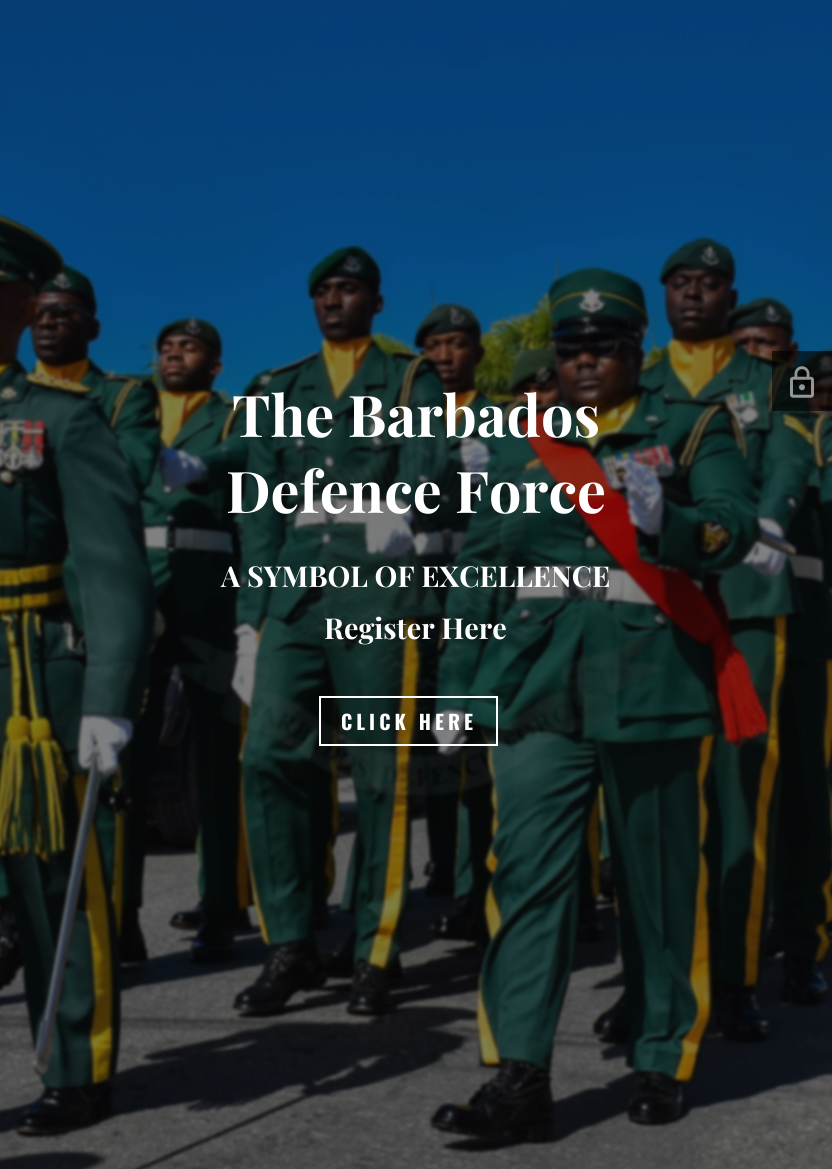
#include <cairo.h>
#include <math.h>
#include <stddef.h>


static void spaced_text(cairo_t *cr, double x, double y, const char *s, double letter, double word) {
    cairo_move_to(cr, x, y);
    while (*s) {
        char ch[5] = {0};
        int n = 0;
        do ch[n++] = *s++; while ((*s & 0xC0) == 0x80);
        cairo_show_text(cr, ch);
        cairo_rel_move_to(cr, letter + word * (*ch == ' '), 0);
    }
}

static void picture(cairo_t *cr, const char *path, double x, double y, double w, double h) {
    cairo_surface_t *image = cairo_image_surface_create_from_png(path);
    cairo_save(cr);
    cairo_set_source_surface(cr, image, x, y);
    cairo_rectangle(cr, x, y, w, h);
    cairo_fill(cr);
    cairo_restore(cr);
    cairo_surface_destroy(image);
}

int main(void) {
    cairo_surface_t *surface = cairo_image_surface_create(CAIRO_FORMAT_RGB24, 832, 1169);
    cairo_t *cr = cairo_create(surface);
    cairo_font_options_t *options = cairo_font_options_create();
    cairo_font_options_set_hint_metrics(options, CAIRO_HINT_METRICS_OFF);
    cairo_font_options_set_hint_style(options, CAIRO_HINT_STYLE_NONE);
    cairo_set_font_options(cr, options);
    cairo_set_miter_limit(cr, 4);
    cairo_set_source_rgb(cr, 1, 1, 1);
    cairo_paint(cr);
    picture(cr, "img1.png", 0, 0, 832, 1169);
    cairo_set_source_rgba(cr, 0, 0, 0, 0.6);
    cairo_rectangle(cr, 772, 351, 60, 60);
    cairo_fill(cr);
    picture(cr, "img2.png", 790, 366, 24, 32);
    cairo_select_font_face(cr, "Playfair Display", CAIRO_FONT_SLANT_NORMAL, CAIRO_FONT_WEIGHT_BOLD);
    cairo_set_font_size(cr, 57.5);
    cairo_set_source_rgb(cr, 1, 1, 1);
    cairo_move_to(cr, 232, 437);
    cairo_show_text(cr, "The Barbados");
    cairo_move_to(cr, 226, 513);
    cairo_show_text(cr, "Defence Force");
    cairo_set_font_size(cr, 28.75);
    cairo_move_to(cr, 221, 587);
    cairo_show_text(cr, "A SYMBOL OF EXCELLENCE");
    cairo_move_to(cr, 324, 639);
    cairo_show_text(cr, "Register Here");
    cairo_rectangle(cr, 320, 697, 177, 48);
    cairo_stroke(cr);
    cairo_select_font_face(cr, "Oswald", CAIRO_FONT_SLANT_NORMAL, CAIRO_FONT_WEIGHT_BOLD);
    cairo_set_font_size(cr, 20);
    spaced_text(cr, 341, 730, "CLICK HERE", 4, 0);
    cairo_surface_write_to_png(surface, "page.png");
    cairo_font_options_destroy(options);
    cairo_destroy(cr);
    cairo_surface_destroy(surface);
    return 0;
}
